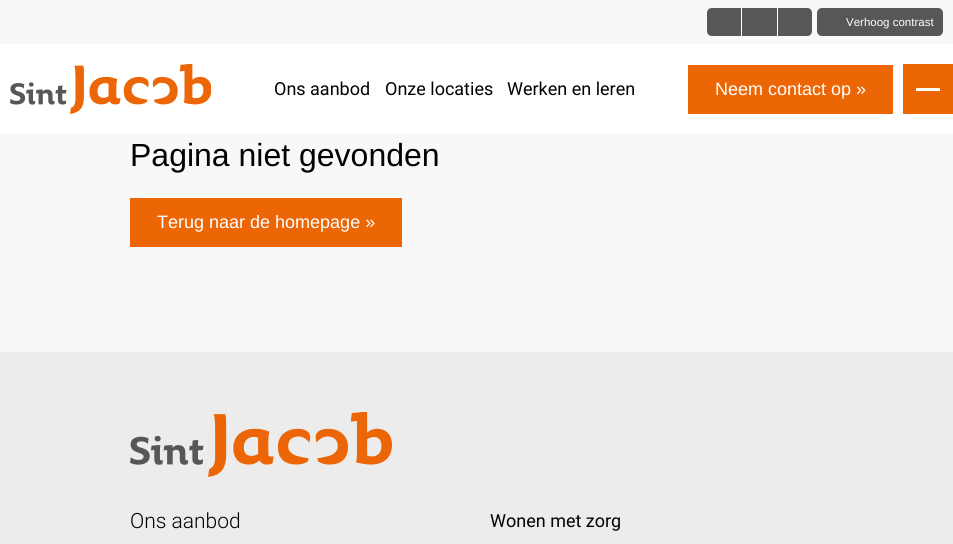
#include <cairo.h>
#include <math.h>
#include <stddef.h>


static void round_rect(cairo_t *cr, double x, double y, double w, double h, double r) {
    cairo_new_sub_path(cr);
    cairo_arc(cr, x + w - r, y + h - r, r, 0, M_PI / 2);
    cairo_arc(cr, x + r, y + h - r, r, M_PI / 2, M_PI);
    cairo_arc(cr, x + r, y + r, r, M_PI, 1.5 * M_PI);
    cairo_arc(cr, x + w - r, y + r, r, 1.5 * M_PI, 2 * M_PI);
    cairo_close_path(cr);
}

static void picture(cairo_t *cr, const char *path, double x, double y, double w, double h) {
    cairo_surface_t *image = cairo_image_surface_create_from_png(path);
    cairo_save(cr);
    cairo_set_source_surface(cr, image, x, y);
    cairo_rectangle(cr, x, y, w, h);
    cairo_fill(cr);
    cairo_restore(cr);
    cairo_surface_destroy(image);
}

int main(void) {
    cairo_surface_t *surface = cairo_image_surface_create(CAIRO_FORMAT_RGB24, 953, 544);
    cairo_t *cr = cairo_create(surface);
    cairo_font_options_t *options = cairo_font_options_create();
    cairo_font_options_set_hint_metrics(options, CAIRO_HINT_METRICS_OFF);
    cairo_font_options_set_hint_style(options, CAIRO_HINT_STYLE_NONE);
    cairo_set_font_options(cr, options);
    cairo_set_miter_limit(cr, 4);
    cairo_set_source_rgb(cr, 1, 1, 1);
    cairo_paint(cr);
    cairo_set_source_rgb(cr, 0.969, 0.969, 0.969);
    cairo_rectangle(cr, 0, 0, 953, 44);
    cairo_fill(cr);
    cairo_set_source_rgb(cr, 0.341, 0.341, 0.337);
    cairo_new_path(cr);
    cairo_move_to(cr, 712, 8);
    cairo_line_to(cr, 742, 8);
    cairo_line_to(cr, 742, 36);
    cairo_line_to(cr, 712, 36);
    cairo_curve_to(cr, 709, 36, 707, 34, 707, 31);
    cairo_line_to(cr, 707, 13);
    cairo_curve_to(cr, 707, 10, 709, 8, 712, 8);
    cairo_close_path(cr);
    cairo_fill(cr);
    cairo_set_source_rgb(cr, 1, 1, 1);
    cairo_rectangle(cr, 741, 8, 1, 28);
    cairo_fill(cr);
    cairo_set_source_rgb(cr, 0.341, 0.341, 0.337);
    cairo_rectangle(cr, 742, 8, 35, 28);
    cairo_fill(cr);
    cairo_set_source_rgb(cr, 1, 1, 1);
    cairo_rectangle(cr, 777, 8, 1, 28);
    cairo_fill(cr);
    cairo_set_source_rgb(cr, 0.341, 0.341, 0.337);
    cairo_new_path(cr);
    cairo_move_to(cr, 778, 8);
    cairo_line_to(cr, 807, 8);
    cairo_curve_to(cr, 810, 8, 812, 10, 812, 13);
    cairo_line_to(cr, 812, 31);
    cairo_curve_to(cr, 812, 34, 810, 36, 807, 36);
    cairo_line_to(cr, 778, 36);
    cairo_close_path(cr);
    cairo_fill(cr);
    round_rect(cr, 817, 8, 126, 28, 5);
    cairo_fill(cr);
    cairo_select_font_face(cr, "Liberation Sans", CAIRO_FONT_SLANT_NORMAL, CAIRO_FONT_WEIGHT_NORMAL);
    cairo_set_font_size(cr, 11.5);
    cairo_set_source_rgb(cr, 1, 1, 1);
    cairo_move_to(cr, 846, 26);
    cairo_show_text(cr, "Verhoog contrast");
    picture(cr, "img1.png", 10, 64, 201, 50);
    cairo_select_font_face(cr, "Roboto", CAIRO_FONT_SLANT_NORMAL, CAIRO_FONT_WEIGHT_NORMAL);
    cairo_set_font_size(cr, 18);
    cairo_set_source_rgb(cr, 0.008, 0.008, 0.004);
    cairo_move_to(cr, 274, 95);
    cairo_show_text(cr, "Ons aanbod");
    cairo_move_to(cr, 385, 95);
    cairo_show_text(cr, "Onze locaties");
    cairo_move_to(cr, 507, 95);
    cairo_show_text(cr, "Werken en leren");
    cairo_set_source_rgb(cr, 0.925, 0.4, 0.027);
    cairo_rectangle(cr, 688, 65, 205, 49);
    cairo_fill(cr);
    cairo_select_font_face(cr, "Liberation Sans", CAIRO_FONT_SLANT_NORMAL, CAIRO_FONT_WEIGHT_NORMAL);
    cairo_set_source_rgb(cr, 1, 1, 1);
    cairo_move_to(cr, 715, 95);
    cairo_show_text(cr, "Neem contact op »");
    cairo_set_source_rgb(cr, 0.925, 0.4, 0.027);
    cairo_rectangle(cr, 903, 64, 50, 50);
    cairo_fill(cr);
    cairo_set_source_rgb(cr, 1, 1, 1);
    cairo_rectangle(cr, 916, 88, 24, 3);
    cairo_fill(cr);
    cairo_set_source_rgb(cr, 0.969, 0.969, 0.969);
    cairo_rectangle(cr, 0, 134, 953, 218);
    cairo_fill(cr);
    cairo_set_font_size(cr, 32);
    cairo_set_source_rgb(cr, 0.008, 0.008, 0.004);
    cairo_move_to(cr, 130, 166);
    cairo_show_text(cr, "Pagina niet gevonden");
    cairo_set_source_rgb(cr, 0.925, 0.4, 0.027);
    cairo_rectangle(cr, 130, 198, 272, 49);
    cairo_fill(cr);
    cairo_set_font_size(cr, 18);
    cairo_set_source_rgb(cr, 1, 1, 1);
    cairo_move_to(cr, 157, 228);
    cairo_show_text(cr, "Terug naar de homepage »");
    cairo_set_source_rgb(cr, 0.922, 0.922, 0.922);
    cairo_rectangle(cr, 0, 352, 953, 192);
    cairo_fill(cr);
    picture(cr, "img2.png", 130, 412, 262, 65);
    cairo_select_font_face(cr, "Roboto Light", CAIRO_FONT_SLANT_NORMAL, CAIRO_FONT_WEIGHT_NORMAL);
    cairo_set_font_size(cr, 21);
    cairo_set_source_rgb(cr, 0.008, 0.008, 0.004);
    cairo_move_to(cr, 130, 528);
    cairo_show_text(cr, "Ons aanbod");
    cairo_select_font_face(cr, "Roboto", CAIRO_FONT_SLANT_NORMAL, CAIRO_FONT_WEIGHT_NORMAL);
    cairo_set_font_size(cr, 18);
    cairo_move_to(cr, 490, 527);
    cairo_show_text(cr, "Wonen met zorg");
    cairo_surface_write_to_png(surface, "page.png");
    cairo_font_options_destroy(options);
    cairo_destroy(cr);
    cairo_surface_destroy(surface);
    return 0;
}
